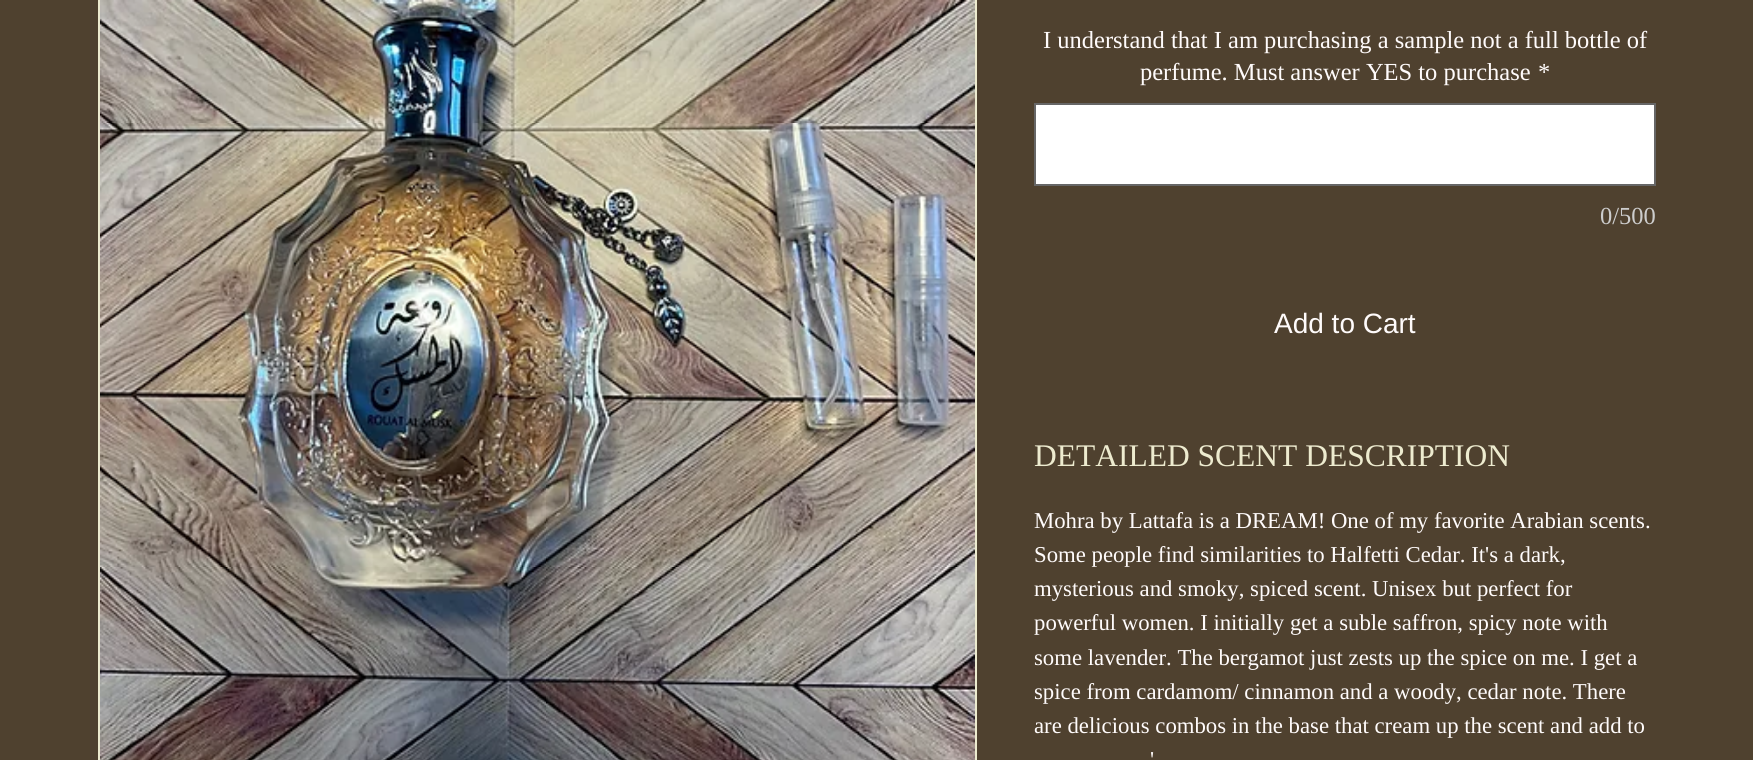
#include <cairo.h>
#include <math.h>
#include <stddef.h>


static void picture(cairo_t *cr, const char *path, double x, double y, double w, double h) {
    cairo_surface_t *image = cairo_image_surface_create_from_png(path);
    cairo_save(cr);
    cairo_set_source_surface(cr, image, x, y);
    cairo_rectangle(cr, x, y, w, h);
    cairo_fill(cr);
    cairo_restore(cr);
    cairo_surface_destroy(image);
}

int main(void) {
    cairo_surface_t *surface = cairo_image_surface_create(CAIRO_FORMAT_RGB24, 1753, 760);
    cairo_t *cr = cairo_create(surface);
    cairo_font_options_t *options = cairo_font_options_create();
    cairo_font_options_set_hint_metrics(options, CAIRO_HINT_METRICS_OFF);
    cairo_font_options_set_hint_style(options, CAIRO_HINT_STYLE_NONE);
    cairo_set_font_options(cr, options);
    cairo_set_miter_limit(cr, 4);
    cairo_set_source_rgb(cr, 0.31, 0.255, 0.184);
    cairo_paint(cr);
    cairo_rectangle(cr, 99, -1, 877, 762);
    cairo_set_source_rgb(cr, 0.929, 0.918, 0.812);
    cairo_stroke(cr);
    picture(cr, "img1.png", 100, 0, 875, 760);
    cairo_select_font_face(cr, "Liberation Serif", CAIRO_FONT_SLANT_NORMAL, CAIRO_FONT_WEIGHT_NORMAL);
    cairo_set_font_size(cr, 24.5);
    cairo_set_source_rgb(cr, 1, 0.984, 0.984);
    cairo_move_to(cr, 1043, 48);
    cairo_show_text(cr, "I understand that I am purchasing a sample not a full bottle of");
    cairo_move_to(cr, 1140, 80);
    cairo_show_text(cr, "perfume. Must answer YES to purchase");
    cairo_move_to(cr, 1538, 80);
    cairo_show_text(cr, "*");
    cairo_set_source_rgb(cr, 1, 1, 1);
    cairo_rectangle(cr, 1035, 104, 620, 81);
    cairo_fill_preserve(cr);
    cairo_set_source_rgb(cr, 0.4, 0.4, 0.4);
    cairo_stroke(cr);
    cairo_set_source_rgb(cr, 0.804, 0.804, 0.804);
    cairo_move_to(cr, 1600, 224);
    cairo_show_text(cr, "0/500");
    cairo_select_font_face(cr, "Liberation Sans", CAIRO_FONT_SLANT_NORMAL, CAIRO_FONT_WEIGHT_NORMAL);
    cairo_set_font_size(cr, 28);
    cairo_set_source_rgb(cr, 1, 0.984, 0.984);
    cairo_move_to(cr, 1274, 333);
    cairo_show_text(cr, "Add to Cart");
    cairo_select_font_face(cr, "Liberation Serif", CAIRO_FONT_SLANT_NORMAL, CAIRO_FONT_WEIGHT_NORMAL);
    cairo_set_font_size(cr, 31.5);
    cairo_set_source_rgb(cr, 0.929, 0.918, 0.812);
    cairo_move_to(cr, 1034, 466);
    cairo_show_text(cr, "DETAILED SCENT DESCRIPTION");
    cairo_set_font_size(cr, 22.75);
    cairo_set_source_rgb(cr, 1, 0.984, 0.984);
    cairo_move_to(cr, 1034, 528);
    cairo_show_text(cr, "Mohra by Lattafa is a DREAM! One of my favorite Arabian scents.");
    cairo_move_to(cr, 1034, 562);
    cairo_show_text(cr, "Some people find similarities to Halfetti Cedar. It's a dark,");
    cairo_move_to(cr, 1034, 596);
    cairo_show_text(cr, "mysterious and smoky, spiced scent. Unisex but perfect for");
    cairo_move_to(cr, 1034, 630);
    cairo_show_text(cr, "powerful women. I initially get a suble saffron, spicy note with");
    cairo_move_to(cr, 1034, 665);
    cairo_show_text(cr, "some lavender. The bergamot just zests up the spice on me. I get a");
    cairo_move_to(cr, 1034, 699);
    cairo_show_text(cr, "spice from cardamom/ cinnamon and a woody, cedar note. There");
    cairo_move_to(cr, 1034, 733);
    cairo_show_text(cr, "are delicious combos in the base that cream up the scent and add to");
    cairo_move_to(cr, 1150, 767);
    cairo_show_text(cr, "'");
    cairo_surface_write_to_png(surface, "page.png");
    cairo_font_options_destroy(options);
    cairo_destroy(cr);
    cairo_surface_destroy(surface);
    return 0;
}
